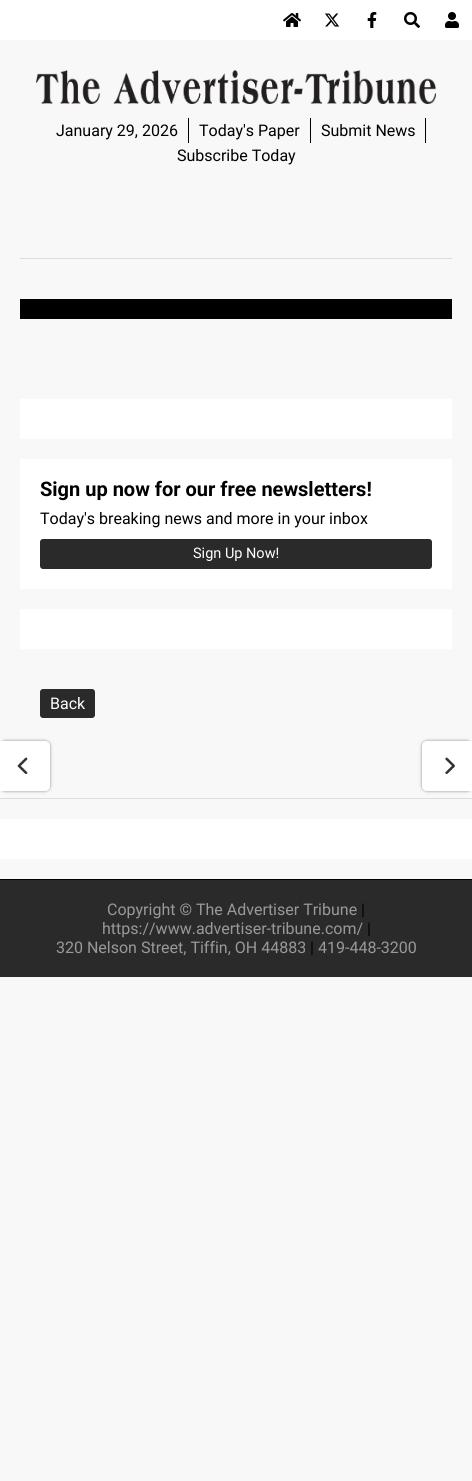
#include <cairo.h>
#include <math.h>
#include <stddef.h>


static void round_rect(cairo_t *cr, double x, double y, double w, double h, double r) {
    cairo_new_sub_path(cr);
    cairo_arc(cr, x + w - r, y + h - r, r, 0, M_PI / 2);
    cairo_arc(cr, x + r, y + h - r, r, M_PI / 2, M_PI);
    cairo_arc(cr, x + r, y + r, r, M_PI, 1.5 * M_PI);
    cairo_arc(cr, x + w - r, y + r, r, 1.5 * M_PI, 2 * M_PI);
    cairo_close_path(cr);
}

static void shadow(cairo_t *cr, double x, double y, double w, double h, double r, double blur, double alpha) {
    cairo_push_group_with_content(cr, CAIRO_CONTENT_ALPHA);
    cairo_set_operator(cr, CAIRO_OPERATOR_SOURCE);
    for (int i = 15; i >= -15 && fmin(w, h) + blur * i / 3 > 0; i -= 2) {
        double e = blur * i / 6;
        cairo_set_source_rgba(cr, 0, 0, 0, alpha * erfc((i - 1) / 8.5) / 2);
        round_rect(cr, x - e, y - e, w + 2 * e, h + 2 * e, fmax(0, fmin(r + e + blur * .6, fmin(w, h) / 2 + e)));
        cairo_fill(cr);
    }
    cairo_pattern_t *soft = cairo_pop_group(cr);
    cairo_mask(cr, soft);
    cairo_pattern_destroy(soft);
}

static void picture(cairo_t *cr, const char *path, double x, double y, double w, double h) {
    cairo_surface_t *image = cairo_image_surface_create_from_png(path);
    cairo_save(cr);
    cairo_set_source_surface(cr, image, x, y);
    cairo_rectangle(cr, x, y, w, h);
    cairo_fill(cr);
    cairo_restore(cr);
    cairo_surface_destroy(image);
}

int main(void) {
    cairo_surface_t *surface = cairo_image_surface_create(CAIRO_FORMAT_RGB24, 472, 1481);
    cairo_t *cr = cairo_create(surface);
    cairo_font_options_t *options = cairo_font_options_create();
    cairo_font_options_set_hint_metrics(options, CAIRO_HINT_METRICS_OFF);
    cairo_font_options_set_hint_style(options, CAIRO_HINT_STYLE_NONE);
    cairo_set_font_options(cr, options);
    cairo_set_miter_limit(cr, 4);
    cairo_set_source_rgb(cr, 0.969, 0.969, 0.969);
    cairo_paint(cr);
    cairo_set_source_rgb(cr, 1, 1, 1);
    cairo_rectangle(cr, 0, 0, 472, 40);
    cairo_fill(cr);
    picture(cr, "img1.png", 283, 13, 18, 14);
    picture(cr, "img2.png", 325, 13, 15, 14);
    picture(cr, "img3.png", 367, 12, 10, 16);
    picture(cr, "img4.png", 404, 12, 16, 16);
    picture(cr, "img5.png", 445, 12, 14, 16);
    picture(cr, "img6.png", 36, 70, 400, 34);
    cairo_set_source_rgb(cr, 0, 0, 0);
    cairo_rectangle(cr, 188, 118, 1, 25);
    cairo_fill(cr);
    cairo_select_font_face(cr, "Roboto", CAIRO_FONT_SLANT_NORMAL, CAIRO_FONT_WEIGHT_NORMAL);
    cairo_set_font_size(cr, 16);
    cairo_move_to(cr, 56, 136);
    cairo_show_text(cr, "January 29, 2026");
    cairo_rectangle(cr, 310, 118, 1, 25);
    cairo_fill(cr);
    cairo_move_to(cr, 199, 136);
    cairo_show_text(cr, "Today's Paper");
    cairo_rectangle(cr, 425, 118, 1, 25);
    cairo_fill(cr);
    cairo_move_to(cr, 321, 136);
    cairo_show_text(cr, "Submit News");
    cairo_move_to(cr, 177, 161);
    cairo_show_text(cr, "Subscribe Today");
    cairo_set_source_rgb(cr, 0.867, 0.867, 0.867);
    cairo_rectangle(cr, 20, 258, 432, 1);
    cairo_fill(cr);
    cairo_set_source_rgb(cr, 0, 0, 0);
    cairo_rectangle(cr, 20, 299, 432, 20);
    cairo_fill(cr);
    cairo_set_source_rgb(cr, 1, 1, 1);
    cairo_rectangle(cr, 20, 399, 432, 40);
    cairo_fill(cr);
    cairo_rectangle(cr, 20, 459, 432, 130);
    cairo_fill(cr);
    cairo_select_font_face(cr, "Roboto", CAIRO_FONT_SLANT_NORMAL, CAIRO_FONT_WEIGHT_BOLD);
    cairo_set_font_size(cr, 20);
    cairo_set_source_rgb(cr, 0, 0, 0);
    cairo_move_to(cr, 40, 496);
    cairo_show_text(cr, "Sign up now for our free newsletters!");
    cairo_select_font_face(cr, "Roboto", CAIRO_FONT_SLANT_NORMAL, CAIRO_FONT_WEIGHT_NORMAL);
    cairo_set_font_size(cr, 16);
    cairo_move_to(cr, 40, 524);
    cairo_show_text(cr, "Today's breaking news and more in your inbox");
    cairo_set_source_rgb(cr, 0.165, 0.165, 0.165);
    round_rect(cr, 40, 539, 392, 30, 3);
    cairo_fill(cr);
    cairo_set_font_size(cr, 14.5);
    cairo_set_source_rgb(cr, 1, 1, 1);
    cairo_move_to(cr, 193, 558);
    cairo_show_text(cr, "Sign Up Now!");
    cairo_rectangle(cr, 20, 609, 432, 40);
    cairo_fill(cr);
    cairo_set_source_rgb(cr, 0.165, 0.165, 0.165);
    round_rect(cr, 40, 689, 55, 29, 3);
    cairo_fill(cr);
    cairo_set_font_size(cr, 16);
    cairo_set_source_rgb(cr, 1, 1, 1);
    cairo_move_to(cr, 50, 709);
    cairo_show_text(cr, "Back");
    cairo_set_source_rgb(cr, 0.533, 0.533, 0.533);
    shadow(cr, 0, 741, 50, 50, 5, 1.5, 1);
    cairo_set_source_rgb(cr, 1, 1, 1);
    cairo_new_path(cr);
    cairo_move_to(cr, 0, 741);
    cairo_line_to(cr, 45, 741);
    cairo_curve_to(cr, 48, 741, 50, 743, 50, 746);
    cairo_line_to(cr, 50, 786);
    cairo_curve_to(cr, 50, 789, 48, 791, 45, 791);
    cairo_line_to(cr, 0, 791);
    cairo_close_path(cr);
    cairo_fill(cr);
    picture(cr, "img7.png", 17, 757, 11, 17);
    cairo_set_source_rgb(cr, 0.533, 0.533, 0.533);
    shadow(cr, 422, 741, 50, 50, 5, 1.5, 1);
    cairo_set_source_rgb(cr, 1, 1, 1);
    cairo_new_path(cr);
    cairo_move_to(cr, 427, 741);
    cairo_line_to(cr, 472, 741);
    cairo_line_to(cr, 472, 791);
    cairo_line_to(cr, 427, 791);
    cairo_curve_to(cr, 424, 791, 422, 789, 422, 786);
    cairo_line_to(cr, 422, 746);
    cairo_curve_to(cr, 422, 743, 424, 741, 427, 741);
    cairo_close_path(cr);
    cairo_fill(cr);
    picture(cr, "img8.png", 445, 757, 10, 17);
    cairo_set_source_rgb(cr, 0.867, 0.867, 0.867);
    cairo_rectangle(cr, 0, 798, 472, 1);
    cairo_fill(cr);
    cairo_set_source_rgb(cr, 1, 1, 1);
    cairo_rectangle(cr, 0, 819, 472, 40);
    cairo_fill(cr);
    cairo_set_source_rgb(cr, 0, 0, 0);
    cairo_rectangle(cr, 0, 879, 472, 1);
    cairo_fill(cr);
    cairo_set_source_rgb(cr, 0.165, 0.165, 0.165);
    cairo_rectangle(cr, 0, 880, 472, 97);
    cairo_fill(cr);
    cairo_set_source_rgb(cr, 0.6, 0.6, 0.6);
    cairo_move_to(cr, 107, 915);
    cairo_show_text(cr, "Copyright © The Advertiser Tribune");
    cairo_set_source_rgb(cr, 0, 0, 0);
    cairo_move_to(cr, 361, 915);
    cairo_show_text(cr, "|");
    cairo_set_source_rgb(cr, 0.6, 0.6, 0.6);
    cairo_move_to(cr, 102, 934);
    cairo_show_text(cr, "https://www.advertiser-tribune.com/");
    cairo_set_source_rgb(cr, 0, 0, 0);
    cairo_move_to(cr, 367, 934);
    cairo_show_text(cr, "|");
    cairo_set_source_rgb(cr, 0.6, 0.6, 0.6);
    cairo_move_to(cr, 56, 953);
    cairo_show_text(cr, "320 Nelson Street, Tiffin, OH 44883");
    cairo_set_source_rgb(cr, 0, 0, 0);
    cairo_move_to(cr, 310, 953);
    cairo_show_text(cr, "|");
    cairo_set_source_rgb(cr, 0.6, 0.6, 0.6);
    cairo_move_to(cr, 318, 953);
    cairo_show_text(cr, "419-448-3200");
    cairo_surface_write_to_png(surface, "page.png");
    cairo_font_options_destroy(options);
    cairo_destroy(cr);
    cairo_surface_destroy(surface);
    return 0;
}
